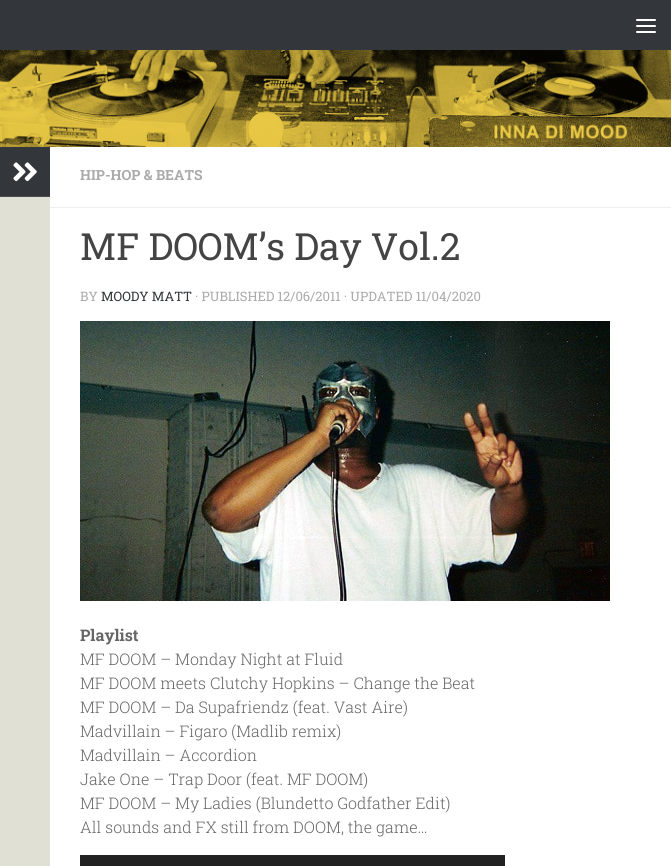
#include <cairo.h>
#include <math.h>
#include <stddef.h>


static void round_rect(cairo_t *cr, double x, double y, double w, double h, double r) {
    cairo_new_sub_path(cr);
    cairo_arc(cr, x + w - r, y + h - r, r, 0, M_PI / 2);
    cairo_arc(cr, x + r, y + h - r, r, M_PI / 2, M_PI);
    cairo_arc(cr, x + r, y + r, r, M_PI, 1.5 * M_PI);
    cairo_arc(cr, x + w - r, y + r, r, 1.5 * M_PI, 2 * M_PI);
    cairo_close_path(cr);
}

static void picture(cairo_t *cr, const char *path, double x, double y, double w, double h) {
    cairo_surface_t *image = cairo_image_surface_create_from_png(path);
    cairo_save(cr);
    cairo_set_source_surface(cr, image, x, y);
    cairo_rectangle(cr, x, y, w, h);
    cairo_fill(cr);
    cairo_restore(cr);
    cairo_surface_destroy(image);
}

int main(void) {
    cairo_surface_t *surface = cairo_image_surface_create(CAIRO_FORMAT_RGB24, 671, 866);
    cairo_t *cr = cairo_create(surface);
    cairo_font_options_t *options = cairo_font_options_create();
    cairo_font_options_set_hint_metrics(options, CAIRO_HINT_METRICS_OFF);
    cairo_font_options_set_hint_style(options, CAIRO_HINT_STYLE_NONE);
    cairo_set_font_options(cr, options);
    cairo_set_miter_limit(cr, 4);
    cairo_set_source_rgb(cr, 1, 1, 1);
    cairo_paint(cr);
    cairo_set_source_rgb(cr, 0.2, 0.212, 0.231);
    cairo_rectangle(cr, 0, 0, 671, 50);
    cairo_fill(cr);
    cairo_set_source_rgb(cr, 1, 1, 1);
    round_rect(cr, 636, 19, 20, 2, 1);
    cairo_fill(cr);
    round_rect(cr, 636, 25, 20, 2, 1);
    cairo_fill(cr);
    round_rect(cr, 636, 31, 20, 2, 1);
    cairo_fill(cr);
    picture(cr, "img1.png", 0, 50, 671, 97);
    cairo_set_source_rgb(cr, 0.878, 0.878, 0.831);
    cairo_rectangle(cr, 0, 197, 50, 669);
    cairo_fill(cr);
    cairo_set_source_rgb(cr, 0.2, 0.212, 0.231);
    cairo_rectangle(cr, 0, 147, 50, 49);
    cairo_fill(cr);
    cairo_set_source_rgb(cr, 0.278, 0.29, 0.31);
    cairo_rectangle(cr, 0, 196, 50, 1);
    cairo_fill(cr);
    picture(cr, "img2.png", 13, 162, 24, 20);
    cairo_set_source_rgb(cr, 0.933, 0.933, 0.933);
    cairo_rectangle(cr, 50, 207, 621, 1);
    cairo_fill(cr);
    cairo_select_font_face(cr, "Roboto Slab", CAIRO_FONT_SLANT_NORMAL, CAIRO_FONT_WEIGHT_BOLD);
    cairo_set_font_size(cr, 14);
    cairo_set_source_rgb(cr, 0.667, 0.667, 0.667);
    cairo_move_to(cr, 80, 180);
    cairo_show_text(cr, "HIP-HOP & BEATS");
    cairo_select_font_face(cr, "Roboto Slab", CAIRO_FONT_SLANT_NORMAL, CAIRO_FONT_WEIGHT_NORMAL);
    cairo_set_font_size(cr, 37.4);
    cairo_set_source_rgb(cr, 0.267, 0.267, 0.267);
    cairo_move_to(cr, 80, 260);
    cairo_show_text(cr, "MF DOOM’s Day Vol.2");
    cairo_set_font_size(cr, 13);
    cairo_set_source_rgb(cr, 0.667, 0.667, 0.667);
    cairo_move_to(cr, 80, 301);
    cairo_show_text(cr, "BY");
    cairo_set_source_rgb(cr, 0.2, 0.212, 0.231);
    cairo_move_to(cr, 101, 301);
    cairo_show_text(cr, "MOODY MATT");
    cairo_set_source_rgb(cr, 0.667, 0.667, 0.667);
    cairo_move_to(cr, 195, 301);
    cairo_show_text(cr, "· PUBLISHED 12/06/2011 · UPDATED 11/04/2020");
    picture(cr, "img3.png", 80, 321, 530, 280);
    cairo_select_font_face(cr, "Roboto Slab", CAIRO_FONT_SLANT_NORMAL, CAIRO_FONT_WEIGHT_BOLD);
    cairo_set_font_size(cr, 16);
    cairo_set_source_rgb(cr, 0.4, 0.4, 0.4);
    cairo_move_to(cr, 80, 641);
    cairo_show_text(cr, "Playlist");
    cairo_select_font_face(cr, "Roboto Slab Light", CAIRO_FONT_SLANT_NORMAL, CAIRO_FONT_WEIGHT_NORMAL);
    cairo_move_to(cr, 80, 665);
    cairo_show_text(cr, "MF DOOM – Monday Night at Fluid");
    cairo_move_to(cr, 80, 689);
    cairo_show_text(cr, "MF DOOM meets Clutchy Hopkins – Change the Beat");
    cairo_move_to(cr, 80, 713);
    cairo_show_text(cr, "MF DOOM – Da Supafriendz (feat. Vast Aire)");
    cairo_move_to(cr, 80, 737);
    cairo_show_text(cr, "Madvillain – Figaro (Madlib remix)");
    cairo_move_to(cr, 80, 761);
    cairo_show_text(cr, "Madvillain – Accordion");
    cairo_move_to(cr, 80, 785);
    cairo_show_text(cr, "Jake One – Trap Door (feat. MF DOOM)");
    cairo_move_to(cr, 80, 809);
    cairo_show_text(cr, "MF DOOM – My Ladies (Blundetto Godfather Edit)");
    cairo_move_to(cr, 80, 833);
    cairo_show_text(cr, "All sounds and FX still from DOOM, the game…");
    cairo_set_source_rgb(cr, 0.133, 0.133, 0.133);
    cairo_rectangle(cr, 80, 855, 425, 11);
    cairo_fill(cr);
    cairo_surface_write_to_png(surface, "page.png");
    cairo_font_options_destroy(options);
    cairo_destroy(cr);
    cairo_surface_destroy(surface);
    return 0;
}
